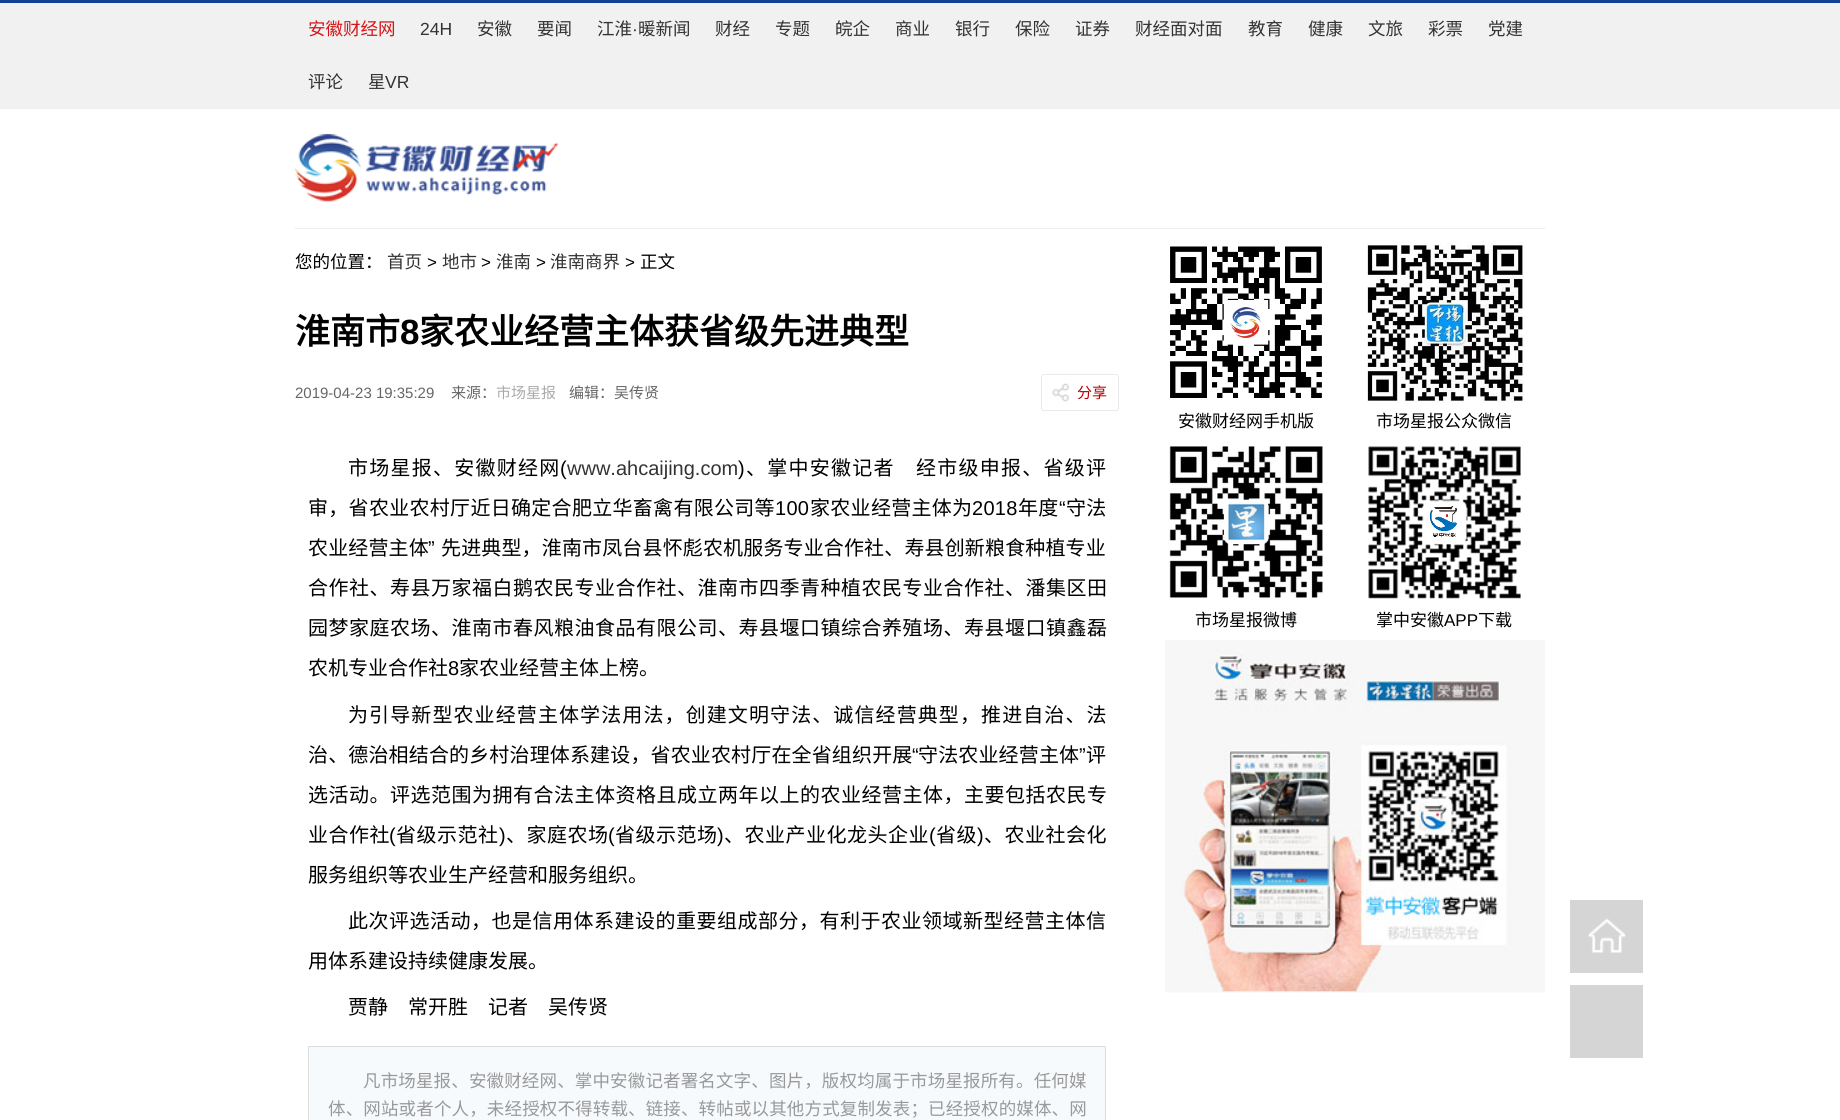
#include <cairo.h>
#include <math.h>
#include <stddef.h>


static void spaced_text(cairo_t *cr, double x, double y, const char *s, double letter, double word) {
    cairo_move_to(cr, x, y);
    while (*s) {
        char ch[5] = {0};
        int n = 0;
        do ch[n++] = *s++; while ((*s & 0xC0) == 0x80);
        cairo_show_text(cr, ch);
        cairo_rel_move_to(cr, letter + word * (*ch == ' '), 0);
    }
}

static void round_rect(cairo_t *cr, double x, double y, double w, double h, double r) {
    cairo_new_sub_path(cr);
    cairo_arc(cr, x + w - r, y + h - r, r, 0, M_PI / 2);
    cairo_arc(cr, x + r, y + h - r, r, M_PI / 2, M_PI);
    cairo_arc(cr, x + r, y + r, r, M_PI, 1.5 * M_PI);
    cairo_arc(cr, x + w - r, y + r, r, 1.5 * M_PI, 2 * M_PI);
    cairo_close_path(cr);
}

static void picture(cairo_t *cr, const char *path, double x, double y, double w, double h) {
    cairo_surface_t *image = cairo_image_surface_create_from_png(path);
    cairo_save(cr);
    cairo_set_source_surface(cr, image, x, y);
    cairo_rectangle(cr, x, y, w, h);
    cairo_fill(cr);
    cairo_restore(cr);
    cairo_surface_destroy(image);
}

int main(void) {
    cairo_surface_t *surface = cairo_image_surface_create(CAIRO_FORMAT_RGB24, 1840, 1120);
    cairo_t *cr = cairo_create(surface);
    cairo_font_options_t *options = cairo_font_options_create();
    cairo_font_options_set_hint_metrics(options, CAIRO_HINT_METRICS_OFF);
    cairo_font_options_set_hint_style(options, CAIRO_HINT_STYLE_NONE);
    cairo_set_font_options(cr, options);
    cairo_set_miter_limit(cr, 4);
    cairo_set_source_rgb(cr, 1, 1, 1);
    cairo_paint(cr);
    cairo_set_source_rgb(cr, 0.945, 0.945, 0.945);
    cairo_rectangle(cr, 0, 3, 1840, 105);
    cairo_fill(cr);
    cairo_set_source_rgb(cr, 0.063, 0.259, 0.588);
    cairo_rectangle(cr, 0, 0, 1840, 3);
    cairo_fill(cr);
    cairo_set_source_rgb(cr, 0.929, 0.929, 0.929);
    cairo_rectangle(cr, 0, 108, 1840, 1);
    cairo_fill(cr);
    cairo_select_font_face(cr, "Noto Sans CJK SC", CAIRO_FONT_SLANT_NORMAL, CAIRO_FONT_WEIGHT_NORMAL);
    cairo_set_font_size(cr, 17.5);
    cairo_set_source_rgb(cr, 0.839, 0.082, 0.094);
    cairo_move_to(cr, 308, 35);
    cairo_show_text(cr, "安徽财经网");
    cairo_select_font_face(cr, "Liberation Sans", CAIRO_FONT_SLANT_NORMAL, CAIRO_FONT_WEIGHT_NORMAL);
    cairo_set_source_rgb(cr, 0.2, 0.2, 0.2);
    cairo_move_to(cr, 420, 35);
    cairo_show_text(cr, "24H");
    cairo_select_font_face(cr, "Noto Sans CJK SC", CAIRO_FONT_SLANT_NORMAL, CAIRO_FONT_WEIGHT_NORMAL);
    cairo_move_to(cr, 477, 35);
    cairo_show_text(cr, "安徽");
    cairo_move_to(cr, 537, 35);
    cairo_show_text(cr, "要闻");
    cairo_move_to(cr, 597, 35);
    cairo_show_text(cr, "江淮");
    cairo_select_font_face(cr, "Liberation Sans", CAIRO_FONT_SLANT_NORMAL, CAIRO_FONT_WEIGHT_NORMAL);
    cairo_move_to(cr, 632, 35);
    cairo_show_text(cr, "·");
    cairo_select_font_face(cr, "Noto Sans CJK SC", CAIRO_FONT_SLANT_NORMAL, CAIRO_FONT_WEIGHT_NORMAL);
    cairo_move_to(cr, 638, 35);
    cairo_show_text(cr, "暖新闻");
    cairo_move_to(cr, 715, 35);
    cairo_show_text(cr, "财经");
    cairo_move_to(cr, 775, 35);
    cairo_show_text(cr, "专题");
    cairo_move_to(cr, 835, 35);
    cairo_show_text(cr, "皖企");
    cairo_move_to(cr, 895, 35);
    cairo_show_text(cr, "商业");
    cairo_move_to(cr, 955, 35);
    cairo_show_text(cr, "银行");
    cairo_move_to(cr, 1015, 35);
    cairo_show_text(cr, "保险");
    cairo_move_to(cr, 1075, 35);
    cairo_show_text(cr, "证券");
    cairo_move_to(cr, 1135, 35);
    cairo_show_text(cr, "财经面对面");
    cairo_move_to(cr, 1248, 35);
    cairo_show_text(cr, "教育");
    cairo_move_to(cr, 1308, 35);
    cairo_show_text(cr, "健康");
    cairo_move_to(cr, 1368, 35);
    cairo_show_text(cr, "文旅");
    cairo_move_to(cr, 1428, 35);
    cairo_show_text(cr, "彩票");
    cairo_move_to(cr, 1488, 35);
    cairo_show_text(cr, "党建");
    cairo_move_to(cr, 308, 88);
    cairo_show_text(cr, "评论");
    cairo_move_to(cr, 368, 88);
    cairo_show_text(cr, "星");
    cairo_select_font_face(cr, "Liberation Sans", CAIRO_FONT_SLANT_NORMAL, CAIRO_FONT_WEIGHT_NORMAL);
    cairo_move_to(cr, 385, 88);
    cairo_show_text(cr, "VR");
    cairo_set_source_rgb(cr, 0.929, 0.929, 0.929);
    cairo_rectangle(cr, 295, 228, 1250, 1);
    cairo_fill(cr);
    picture(cr, "img1.png", 295, 133, 263, 69);
    cairo_select_font_face(cr, "Noto Sans CJK SC", CAIRO_FONT_SLANT_NORMAL, CAIRO_FONT_WEIGHT_NORMAL);
    cairo_set_source_rgb(cr, 0, 0, 0);
    cairo_move_to(cr, 295, 268);
    cairo_show_text(cr, "您的位置：");
    cairo_set_source_rgb(cr, 0.2, 0.2, 0.2);
    cairo_move_to(cr, 387, 268);
    cairo_show_text(cr, "首页");
    cairo_select_font_face(cr, "Liberation Sans", CAIRO_FONT_SLANT_NORMAL, CAIRO_FONT_WEIGHT_NORMAL);
    cairo_set_font_size(cr, 17);
    cairo_set_source_rgb(cr, 0, 0, 0);
    cairo_move_to(cr, 427, 268);
    cairo_show_text(cr, ">");
    cairo_select_font_face(cr, "Noto Sans CJK SC", CAIRO_FONT_SLANT_NORMAL, CAIRO_FONT_WEIGHT_NORMAL);
    cairo_set_font_size(cr, 17.5);
    cairo_set_source_rgb(cr, 0.2, 0.2, 0.2);
    cairo_move_to(cr, 442, 268);
    cairo_show_text(cr, "地市");
    cairo_select_font_face(cr, "Liberation Sans", CAIRO_FONT_SLANT_NORMAL, CAIRO_FONT_WEIGHT_NORMAL);
    cairo_set_font_size(cr, 17);
    cairo_set_source_rgb(cr, 0, 0, 0);
    cairo_move_to(cr, 481, 268);
    cairo_show_text(cr, ">");
    cairo_select_font_face(cr, "Noto Sans CJK SC", CAIRO_FONT_SLANT_NORMAL, CAIRO_FONT_WEIGHT_NORMAL);
    cairo_set_font_size(cr, 17.5);
    cairo_set_source_rgb(cr, 0.2, 0.2, 0.2);
    cairo_move_to(cr, 496, 268);
    cairo_show_text(cr, "淮南");
    cairo_select_font_face(cr, "Liberation Sans", CAIRO_FONT_SLANT_NORMAL, CAIRO_FONT_WEIGHT_NORMAL);
    cairo_set_font_size(cr, 17);
    cairo_set_source_rgb(cr, 0, 0, 0);
    cairo_move_to(cr, 536, 268);
    cairo_show_text(cr, ">");
    cairo_select_font_face(cr, "Noto Sans CJK SC", CAIRO_FONT_SLANT_NORMAL, CAIRO_FONT_WEIGHT_NORMAL);
    cairo_set_font_size(cr, 17.5);
    cairo_set_source_rgb(cr, 0.2, 0.2, 0.2);
    cairo_move_to(cr, 550, 268);
    cairo_show_text(cr, "淮南商界");
    cairo_select_font_face(cr, "Liberation Sans", CAIRO_FONT_SLANT_NORMAL, CAIRO_FONT_WEIGHT_NORMAL);
    cairo_set_font_size(cr, 17);
    cairo_set_source_rgb(cr, 0, 0, 0);
    cairo_move_to(cr, 625, 268);
    cairo_show_text(cr, ">");
    cairo_select_font_face(cr, "Noto Sans CJK SC", CAIRO_FONT_SLANT_NORMAL, CAIRO_FONT_WEIGHT_NORMAL);
    cairo_set_font_size(cr, 17.5);
    cairo_move_to(cr, 640, 268);
    cairo_show_text(cr, "正文");
    cairo_select_font_face(cr, "Noto Sans CJK SC", CAIRO_FONT_SLANT_NORMAL, CAIRO_FONT_WEIGHT_BOLD);
    cairo_set_font_size(cr, 35);
    cairo_move_to(cr, 295, 344);
    cairo_show_text(cr, "淮南市");
    cairo_select_font_face(cr, "Liberation Sans", CAIRO_FONT_SLANT_NORMAL, CAIRO_FONT_WEIGHT_BOLD);
    cairo_move_to(cr, 400, 344);
    cairo_show_text(cr, "8");
    cairo_select_font_face(cr, "Noto Sans CJK SC", CAIRO_FONT_SLANT_NORMAL, CAIRO_FONT_WEIGHT_BOLD);
    cairo_move_to(cr, 419, 344);
    cairo_show_text(cr, "家农业经营主体获省级先进典型");
    cairo_select_font_face(cr, "Liberation Sans", CAIRO_FONT_SLANT_NORMAL, CAIRO_FONT_WEIGHT_NORMAL);
    cairo_set_font_size(cr, 15);
    cairo_set_source_rgb(cr, 0.4, 0.4, 0.4);
    cairo_move_to(cr, 295, 398);
    cairo_show_text(cr, "2019-04-23 19:35:29");
    cairo_select_font_face(cr, "Noto Sans CJK SC", CAIRO_FONT_SLANT_NORMAL, CAIRO_FONT_WEIGHT_NORMAL);
    cairo_move_to(cr, 451, 398);
    cairo_show_text(cr, "来源：");
    cairo_set_source_rgb(cr, 0.667, 0.667, 0.667);
    cairo_move_to(cr, 496, 398);
    cairo_show_text(cr, "市场星报");
    cairo_set_source_rgb(cr, 0.4, 0.4, 0.4);
    cairo_move_to(cr, 569, 398);
    cairo_show_text(cr, "编辑：吴传贤");
    picture(cr, "img2.png", 1052, 383, 17, 19);
    round_rect(cr, 1041.5, 374.5, 77, 36, 2);
    cairo_set_source_rgb(cr, 0.918, 0.918, 0.918);
    cairo_set_line_width(cr, 1);
    cairo_stroke(cr);
    cairo_set_source_rgb(cr, 0.706, 0, 0);
    cairo_move_to(cr, 1077, 398);
    cairo_show_text(cr, "分享");
    cairo_set_font_size(cr, 20);
    cairo_set_source_rgb(cr, 0, 0, 0);
    spaced_text(cr, 348, 475, "市场星报、安徽财经网", 1.25, 0);
    cairo_select_font_face(cr, "Liberation Sans", CAIRO_FONT_SLANT_NORMAL, CAIRO_FONT_WEIGHT_NORMAL);
    spaced_text(cr, 560, 475, "(", 1.25, 0);
    cairo_set_source_rgb(cr, 0.2, 0.2, 0.2);
    cairo_move_to(cr, 567, 475);
    cairo_show_text(cr, "www.ahcaijing.com");
    cairo_set_source_rgb(cr, 0, 0, 0);
    spaced_text(cr, 738, 475, ")", 1.25, 0);
    cairo_select_font_face(cr, "Noto Sans CJK SC", CAIRO_FONT_SLANT_NORMAL, CAIRO_FONT_WEIGHT_NORMAL);
    spaced_text(cr, 746, 475, "、掌中安徽记者　经市级申报、省级评", 1.25, 0);
    spaced_text(cr, 308, 515, "审，省农业农村厅近日确定合肥立华畜禽有限公司等", 0.3, 0);
    cairo_select_font_face(cr, "Liberation Sans", CAIRO_FONT_SLANT_NORMAL, CAIRO_FONT_WEIGHT_NORMAL);
    spaced_text(cr, 775, 515, "100", 0.3, 0);
    cairo_select_font_face(cr, "Noto Sans CJK SC", CAIRO_FONT_SLANT_NORMAL, CAIRO_FONT_WEIGHT_NORMAL);
    spaced_text(cr, 810, 515, "家农业经营主体为", 0.3, 0);
    cairo_select_font_face(cr, "Liberation Sans", CAIRO_FONT_SLANT_NORMAL, CAIRO_FONT_WEIGHT_NORMAL);
    spaced_text(cr, 972, 515, "2018", 0.3, 0);
    cairo_select_font_face(cr, "Noto Sans CJK SC", CAIRO_FONT_SLANT_NORMAL, CAIRO_FONT_WEIGHT_NORMAL);
    spaced_text(cr, 1018, 515, "年度", 0.3, 0);
    cairo_select_font_face(cr, "Liberation Sans", CAIRO_FONT_SLANT_NORMAL, CAIRO_FONT_WEIGHT_NORMAL);
    spaced_text(cr, 1059, 515, "“", 0.3, 0);
    cairo_select_font_face(cr, "Noto Sans CJK SC", CAIRO_FONT_SLANT_NORMAL, CAIRO_FONT_WEIGHT_NORMAL);
    spaced_text(cr, 1066, 515, "守法", 0.3, 0);
    spaced_text(cr, 308, 555, "农业经营主体", 0.15, 0);
    cairo_select_font_face(cr, "Liberation Sans", CAIRO_FONT_SLANT_NORMAL, CAIRO_FONT_WEIGHT_NORMAL);
    spaced_text(cr, 428, 555, "”", 0.15, 0);
    cairo_select_font_face(cr, "Noto Sans CJK SC", CAIRO_FONT_SLANT_NORMAL, CAIRO_FONT_WEIGHT_NORMAL);
    spaced_text(cr, 441, 555, "先进典型，淮南市凤台县怀彪农机服务专业合作社、寿县创新粮食种植专业", 0.15, 0);
    spaced_text(cr, 308, 595, "合作社、寿县万家福白鹅农民专业合作社、淮南市四季青种植农民专业合作社、潘集区田", 0.5, 0);
    spaced_text(cr, 308, 635, "园梦家庭农场、淮南市春风粮油食品有限公司、寿县堰口镇综合养殖场、寿县堰口镇鑫磊", 0.5, 0);
    cairo_move_to(cr, 308, 675);
    cairo_show_text(cr, "农机专业合作社");
    cairo_select_font_face(cr, "Liberation Sans", CAIRO_FONT_SLANT_NORMAL, CAIRO_FONT_WEIGHT_NORMAL);
    cairo_move_to(cr, 448, 675);
    cairo_show_text(cr, "8");
    cairo_select_font_face(cr, "Noto Sans CJK SC", CAIRO_FONT_SLANT_NORMAL, CAIRO_FONT_WEIGHT_NORMAL);
    cairo_move_to(cr, 459, 675);
    cairo_show_text(cr, "家农业经营主体上榜。");
    spaced_text(cr, 348, 722, "为引导新型农业经营主体学法用法，创建文明守法、诚信经营典型，推进自治、法", 1.1, 0);
    spaced_text(cr, 308, 762, "治、德治相结合的乡村治理体系建设，省农业农村厅在全省组织开展", 0.15, 0);
    cairo_select_font_face(cr, "Liberation Sans", CAIRO_FONT_SLANT_NORMAL, CAIRO_FONT_WEIGHT_NORMAL);
    spaced_text(cr, 912, 762, "“", 0.15, 0);
    cairo_select_font_face(cr, "Noto Sans CJK SC", CAIRO_FONT_SLANT_NORMAL, CAIRO_FONT_WEIGHT_NORMAL);
    spaced_text(cr, 918, 762, "守法农业经营主体", 0.15, 0);
    cairo_select_font_face(cr, "Liberation Sans", CAIRO_FONT_SLANT_NORMAL, CAIRO_FONT_WEIGHT_NORMAL);
    spaced_text(cr, 1079, 762, "”", 0.15, 0);
    cairo_select_font_face(cr, "Noto Sans CJK SC", CAIRO_FONT_SLANT_NORMAL, CAIRO_FONT_WEIGHT_NORMAL);
    spaced_text(cr, 1086, 762, "评", 0.15, 0);
    spaced_text(cr, 308, 802, "选活动。评选范围为拥有合法主体资格且成立两年以上的农业经营主体，主要包括农民专", 0.5, 0);
    spaced_text(cr, 308, 842, "业合作社", 0.5, 0);
    cairo_select_font_face(cr, "Liberation Sans", CAIRO_FONT_SLANT_NORMAL, CAIRO_FONT_WEIGHT_NORMAL);
    spaced_text(cr, 389, 842, "(", 0.5, 0);
    cairo_select_font_face(cr, "Noto Sans CJK SC", CAIRO_FONT_SLANT_NORMAL, CAIRO_FONT_WEIGHT_NORMAL);
    spaced_text(cr, 396, 842, "省级示范社", 0.5, 0);
    cairo_select_font_face(cr, "Liberation Sans", CAIRO_FONT_SLANT_NORMAL, CAIRO_FONT_WEIGHT_NORMAL);
    spaced_text(cr, 499, 842, ")", 0.5, 0);
    cairo_select_font_face(cr, "Noto Sans CJK SC", CAIRO_FONT_SLANT_NORMAL, CAIRO_FONT_WEIGHT_NORMAL);
    spaced_text(cr, 506, 842, "、家庭农场", 0.5, 0);
    cairo_select_font_face(cr, "Liberation Sans", CAIRO_FONT_SLANT_NORMAL, CAIRO_FONT_WEIGHT_NORMAL);
    spaced_text(cr, 608, 842, "(", 0.5, 0);
    cairo_select_font_face(cr, "Noto Sans CJK SC", CAIRO_FONT_SLANT_NORMAL, CAIRO_FONT_WEIGHT_NORMAL);
    spaced_text(cr, 615, 842, "省级示范场", 0.5, 0);
    cairo_select_font_face(cr, "Liberation Sans", CAIRO_FONT_SLANT_NORMAL, CAIRO_FONT_WEIGHT_NORMAL);
    spaced_text(cr, 717, 842, ")", 0.5, 0);
    cairo_select_font_face(cr, "Noto Sans CJK SC", CAIRO_FONT_SLANT_NORMAL, CAIRO_FONT_WEIGHT_NORMAL);
    spaced_text(cr, 724, 842, "、农业产业化龙头企业", 0.5, 0);
    cairo_select_font_face(cr, "Liberation Sans", CAIRO_FONT_SLANT_NORMAL, CAIRO_FONT_WEIGHT_NORMAL);
    spaced_text(cr, 929, 842, "(", 0.5, 0);
    cairo_select_font_face(cr, "Noto Sans CJK SC", CAIRO_FONT_SLANT_NORMAL, CAIRO_FONT_WEIGHT_NORMAL);
    spaced_text(cr, 936, 842, "省级", 0.5, 0);
    cairo_select_font_face(cr, "Liberation Sans", CAIRO_FONT_SLANT_NORMAL, CAIRO_FONT_WEIGHT_NORMAL);
    spaced_text(cr, 977, 842, ")", 0.5, 0);
    cairo_select_font_face(cr, "Noto Sans CJK SC", CAIRO_FONT_SLANT_NORMAL, CAIRO_FONT_WEIGHT_NORMAL);
    spaced_text(cr, 984, 842, "、农业社会化", 0.5, 0);
    cairo_move_to(cr, 308, 882);
    cairo_show_text(cr, "服务组织等农业生产经营和服务组织。");
    spaced_text(cr, 348, 928, "此次评选活动，也是信用体系建设的重要组成部分，有利于农业领域新型经营主体信", 0.5, 0);
    cairo_move_to(cr, 308, 968);
    cairo_show_text(cr, "用体系建设持续健康发展。");
    cairo_move_to(cr, 348, 1014);
    cairo_show_text(cr, "贾静　常开胜　记者　吴传贤");
    cairo_set_source_rgb(cr, 0.965, 0.98, 0.992);
    cairo_rectangle(cr, 308.5, 1046.5, 797, 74);
    cairo_fill_preserve(cr);
    cairo_set_source_rgb(cr, 0.863, 0.867, 0.867);
    cairo_stroke(cr);
    cairo_set_font_size(cr, 17.5);
    cairo_set_source_rgb(cr, 0.6, 0.6, 0.6);
    spaced_text(cr, 363, 1087, "凡市场星报、安徽财经网、掌中安徽记者署名文字、图片，版权均属于市场星报所有。任何媒", 0.15, 0);
    spaced_text(cr, 328, 1115, "体、网站或者个人，未经授权不得转载、链接、转帖或以其他方式复制发表；已经授权的媒体、网", 0.15, 0);
    picture(cr, "img3.png", 1170, 246, 152, 152);
    cairo_set_font_size(cr, 17);
    cairo_set_source_rgb(cr, 0, 0, 0);
    cairo_move_to(cr, 1178, 427);
    cairo_show_text(cr, "安徽财经网手机版");
    picture(cr, "img4.png", 1367, 241, 158, 162);
    cairo_move_to(cr, 1376, 427);
    cairo_show_text(cr, "市场星报公众微信");
    picture(cr, "img5.png", 1169, 446, 154, 152);
    cairo_move_to(cr, 1195, 626);
    cairo_show_text(cr, "市场星报微博");
    picture(cr, "img6.png", 1368, 446, 153, 153);
    cairo_move_to(cr, 1376, 626);
    cairo_show_text(cr, "掌中安徽");
    cairo_select_font_face(cr, "Liberation Sans", CAIRO_FONT_SLANT_NORMAL, CAIRO_FONT_WEIGHT_NORMAL);
    cairo_move_to(cr, 1444, 626);
    cairo_show_text(cr, "APP");
    cairo_select_font_face(cr, "Noto Sans CJK SC", CAIRO_FONT_SLANT_NORMAL, CAIRO_FONT_WEIGHT_NORMAL);
    cairo_move_to(cr, 1478, 626);
    cairo_show_text(cr, "下载");
    picture(cr, "img7.png", 1165, 640, 380, 353);
    cairo_set_source_rgb(cr, 0.835, 0.835, 0.835);
    cairo_rectangle(cr, 1570, 900, 73, 73);
    cairo_fill(cr);
    picture(cr, "img8.png", 1588, 918, 38, 35);
    cairo_rectangle(cr, 1570, 985, 73, 73);
    cairo_fill(cr);
    cairo_surface_write_to_png(surface, "page.png");
    cairo_font_options_destroy(options);
    cairo_destroy(cr);
    cairo_surface_destroy(surface);
    return 0;
}
